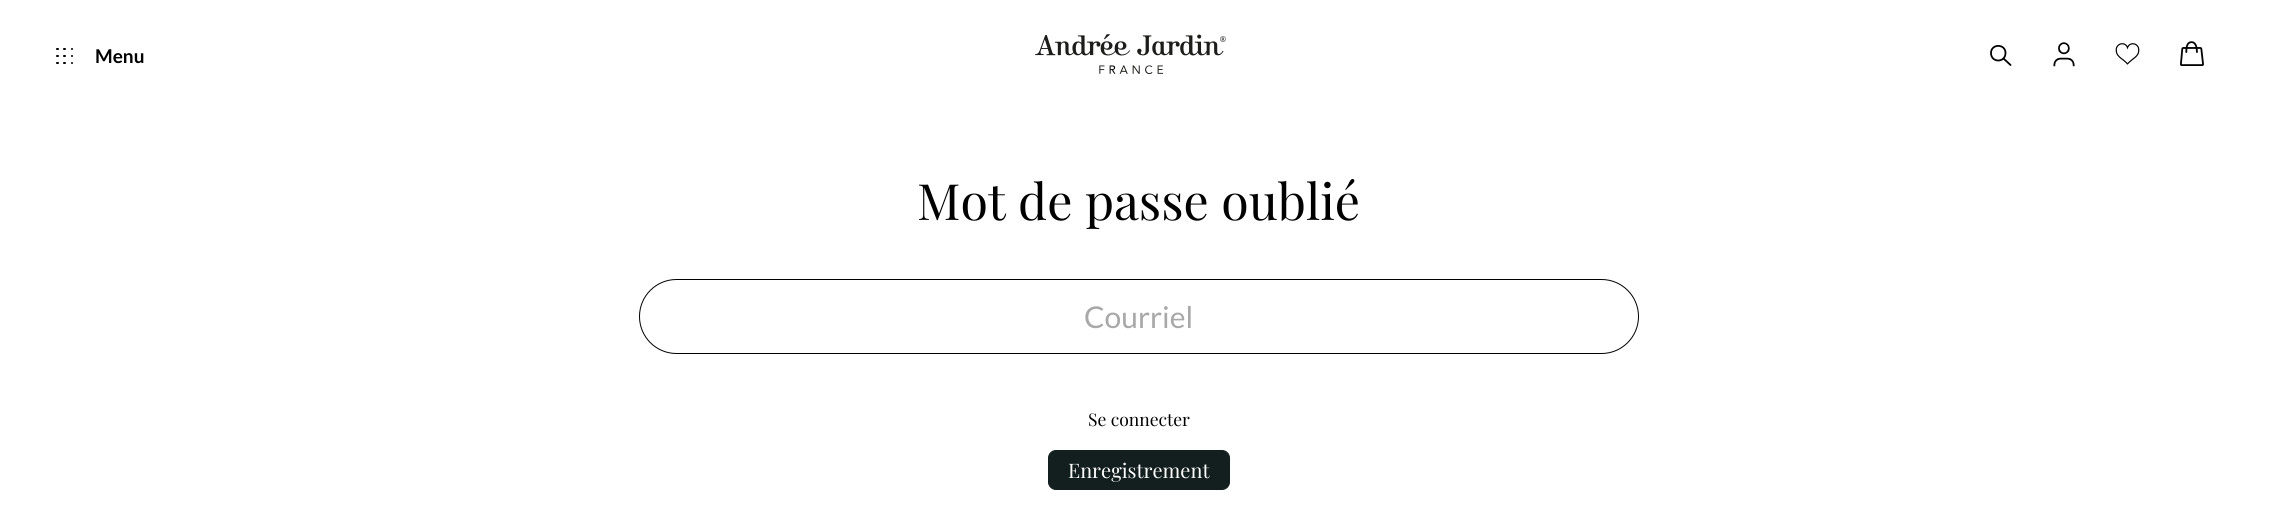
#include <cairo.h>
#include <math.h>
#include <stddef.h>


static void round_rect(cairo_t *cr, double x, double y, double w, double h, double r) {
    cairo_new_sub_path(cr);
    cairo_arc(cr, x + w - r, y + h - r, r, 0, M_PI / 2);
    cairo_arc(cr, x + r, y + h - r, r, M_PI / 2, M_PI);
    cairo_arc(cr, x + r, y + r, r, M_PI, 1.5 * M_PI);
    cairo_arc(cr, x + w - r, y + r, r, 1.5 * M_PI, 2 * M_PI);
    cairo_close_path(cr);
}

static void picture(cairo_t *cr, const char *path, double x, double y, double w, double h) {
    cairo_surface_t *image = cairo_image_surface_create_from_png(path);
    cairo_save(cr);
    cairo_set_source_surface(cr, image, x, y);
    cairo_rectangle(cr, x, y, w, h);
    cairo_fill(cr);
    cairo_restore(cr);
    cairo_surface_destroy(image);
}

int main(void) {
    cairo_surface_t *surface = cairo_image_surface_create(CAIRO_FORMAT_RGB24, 2277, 525);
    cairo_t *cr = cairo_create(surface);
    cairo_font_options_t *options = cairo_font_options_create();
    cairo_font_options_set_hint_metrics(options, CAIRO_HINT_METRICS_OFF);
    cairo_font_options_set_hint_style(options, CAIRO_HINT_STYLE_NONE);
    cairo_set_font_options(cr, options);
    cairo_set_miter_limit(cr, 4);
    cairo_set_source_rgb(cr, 1, 1, 1);
    cairo_paint(cr);
    picture(cr, "img1.png", 56, 48, 17, 16);
    cairo_select_font_face(cr, "Lato", CAIRO_FONT_SLANT_NORMAL, CAIRO_FONT_WEIGHT_BOLD);
    cairo_set_font_size(cr, 19);
    cairo_set_source_rgb(cr, 0, 0, 0);
    cairo_move_to(cr, 95, 63);
    cairo_show_text(cr, "Menu");
    picture(cr, "img2.png", 1035, 34, 191, 40);
    cairo_new_path(cr);
    cairo_move_to(cr, 2005.5, 53);
    cairo_curve_to(cr, 2005.5, 43.5, 1991, 43.5, 1991, 53);
    cairo_curve_to(cr, 1991, 63, 2005.5, 63, 2005.5, 53);
    cairo_close_path(cr);
    cairo_move_to(cr, 2003.5, 58.5);
    cairo_line_to(cr, 2010.5, 65);
    cairo_set_line_width(cr, 1.8);
    cairo_set_line_cap(cr, CAIRO_LINE_CAP_ROUND);
    cairo_stroke(cr);
    picture(cr, "img3.png", 2053, 42, 22, 25);
    picture(cr, "img4.png", 2115, 43, 25, 22);
    picture(cr, "img5.png", 2180, 41, 24, 25);
    cairo_select_font_face(cr, "Playfair Display", CAIRO_FONT_SLANT_NORMAL, CAIRO_FONT_WEIGHT_NORMAL);
    cairo_set_font_size(cr, 50);
    cairo_move_to(cr, 917, 220);
    cairo_show_text(cr, "Mot de passe oublié");
    round_rect(cr, 639.5, 279.5, 999, 74, 37);
    cairo_set_line_width(cr, 1);
    cairo_set_line_cap(cr, CAIRO_LINE_CAP_BUTT);
    cairo_stroke(cr);
    cairo_select_font_face(cr, "Lato", CAIRO_FONT_SLANT_NORMAL, CAIRO_FONT_WEIGHT_NORMAL);
    cairo_set_font_size(cr, 30);
    cairo_set_source_rgb(cr, 0.659, 0.659, 0.659);
    cairo_move_to(cr, 1084, 328);
    cairo_show_text(cr, "Courriel");
    cairo_select_font_face(cr, "Playfair Display", CAIRO_FONT_SLANT_NORMAL, CAIRO_FONT_WEIGHT_NORMAL);
    cairo_set_font_size(cr, 17.5);
    cairo_set_source_rgb(cr, 0, 0, 0);
    cairo_move_to(cr, 1088, 426);
    cairo_show_text(cr, "Se connecter");
    cairo_set_source_rgb(cr, 0.078, 0.122, 0.118);
    round_rect(cr, 1048.5, 450.5, 181, 39, 7.5);
    cairo_fill_preserve(cr);
    cairo_stroke(cr);
    cairo_set_font_size(cr, 20);
    cairo_set_source_rgb(cr, 1, 1, 1);
    cairo_move_to(cr, 1068, 478);
    cairo_show_text(cr, "Enregistrement");
    cairo_surface_write_to_png(surface, "page.png");
    cairo_font_options_destroy(options);
    cairo_destroy(cr);
    cairo_surface_destroy(surface);
    return 0;
}
